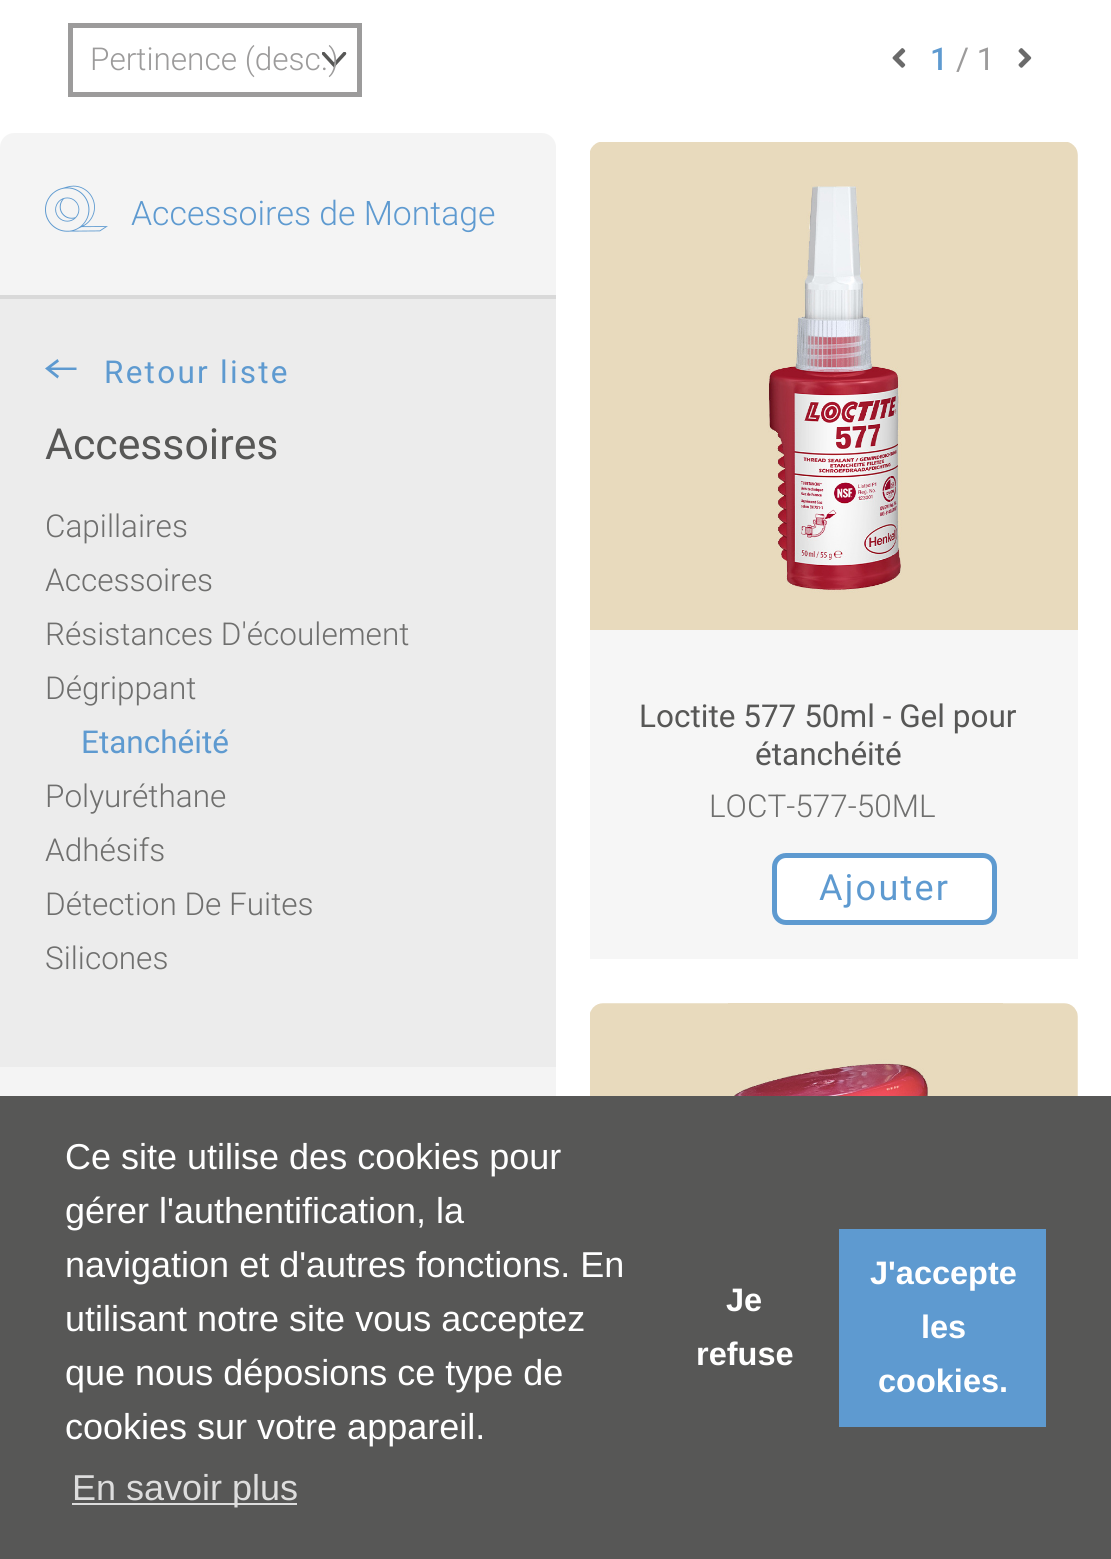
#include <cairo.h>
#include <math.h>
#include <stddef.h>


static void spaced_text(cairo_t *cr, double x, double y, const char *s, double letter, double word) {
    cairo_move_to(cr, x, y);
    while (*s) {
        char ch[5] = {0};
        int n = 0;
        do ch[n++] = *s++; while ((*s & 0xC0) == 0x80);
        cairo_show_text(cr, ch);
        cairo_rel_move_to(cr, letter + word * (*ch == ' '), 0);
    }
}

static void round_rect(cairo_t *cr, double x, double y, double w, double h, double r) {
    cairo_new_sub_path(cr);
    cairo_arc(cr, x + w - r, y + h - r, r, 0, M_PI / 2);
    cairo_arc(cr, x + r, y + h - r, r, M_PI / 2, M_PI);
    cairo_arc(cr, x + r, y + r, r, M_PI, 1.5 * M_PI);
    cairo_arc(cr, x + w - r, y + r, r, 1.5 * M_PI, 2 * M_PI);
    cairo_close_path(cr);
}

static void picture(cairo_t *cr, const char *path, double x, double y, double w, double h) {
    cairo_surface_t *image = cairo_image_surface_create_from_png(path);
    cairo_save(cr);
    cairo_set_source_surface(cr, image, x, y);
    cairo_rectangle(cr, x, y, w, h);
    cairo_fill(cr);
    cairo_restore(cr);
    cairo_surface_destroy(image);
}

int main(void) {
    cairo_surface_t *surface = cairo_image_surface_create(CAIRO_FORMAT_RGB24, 1111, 1559);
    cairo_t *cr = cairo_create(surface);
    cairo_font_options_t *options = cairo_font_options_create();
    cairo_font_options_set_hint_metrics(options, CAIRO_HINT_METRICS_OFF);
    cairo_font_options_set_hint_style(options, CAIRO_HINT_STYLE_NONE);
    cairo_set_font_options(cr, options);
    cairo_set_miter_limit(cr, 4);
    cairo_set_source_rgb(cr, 1, 1, 1);
    cairo_paint(cr);
    cairo_save(cr);
    cairo_rectangle(cr, 322, 52, 25, 16);
    cairo_clip(cr);
    cairo_new_path(cr);
    cairo_move_to(cr, 344.5, 53.5);
    cairo_line_to(cr, 334, 65);
    cairo_line_to(cr, 323.5, 53.5);
    cairo_set_source_rgb(cr, 0.341, 0.341, 0.337);
    cairo_set_line_width(cr, 3.5);
    cairo_set_line_cap(cr, CAIRO_LINE_CAP_ROUND);
    cairo_stroke(cr);
    cairo_restore(cr);
    cairo_rectangle(cr, 70.5, 25.5, 289, 69);
    cairo_set_source_rgb(cr, 0.612, 0.608, 0.608);
    cairo_set_line_width(cr, 5);
    cairo_stroke(cr);
    cairo_select_font_face(cr, "Roboto Light", CAIRO_FONT_SLANT_NORMAL, CAIRO_FONT_WEIGHT_NORMAL);
    cairo_set_font_size(cr, 31.5);
    cairo_move_to(cr, 90, 70);
    cairo_show_text(cr, "Pertinence (desc.)");
    picture(cr, "img1.png", 892, 48, 14, 20);
    cairo_select_font_face(cr, "Roboto Medium", CAIRO_FONT_SLANT_NORMAL, CAIRO_FONT_WEIGHT_NORMAL);
    cairo_set_source_rgb(cr, 0.369, 0.604, 0.816);
    cairo_move_to(cr, 930, 70);
    cairo_show_text(cr, "1");
    cairo_select_font_face(cr, "Roboto", CAIRO_FONT_SLANT_NORMAL, CAIRO_FONT_WEIGHT_NORMAL);
    cairo_set_source_rgb(cr, 0.612, 0.608, 0.608);
    cairo_move_to(cr, 956, 70);
    cairo_show_text(cr, "/ 1");
    picture(cr, "img2.png", 1018, 48, 14, 20);
    cairo_set_source_rgb(cr, 0.957, 0.957, 0.957);
    cairo_new_path(cr);
    cairo_move_to(cr, 14, 133);
    cairo_line_to(cr, 542, 133);
    cairo_curve_to(cr, 549.5, 133, 556, 139.5, 556, 147);
    cairo_line_to(cr, 556, 299);
    cairo_line_to(cr, 0, 299);
    cairo_line_to(cr, 0, 147);
    cairo_curve_to(cr, 0, 139.5, 6.5, 133, 14, 133);
    cairo_close_path(cr);
    cairo_fill(cr);
    cairo_set_source_rgb(cr, 0.851, 0.851, 0.851);
    cairo_rectangle(cr, 0, 295, 556, 4);
    cairo_fill(cr);
    picture(cr, "img3.png", 45, 185, 63, 47);
    cairo_select_font_face(cr, "Roboto Light", CAIRO_FONT_SLANT_NORMAL, CAIRO_FONT_WEIGHT_NORMAL);
    cairo_set_font_size(cr, 33.75);
    cairo_set_source_rgb(cr, 0.369, 0.604, 0.816);
    cairo_move_to(cr, 131, 225);
    cairo_show_text(cr, "Accessoires de Montage");
    cairo_set_source_rgb(cr, 0.957, 0.957, 0.957);
    cairo_rectangle(cr, 0, 1067, 556, 29);
    cairo_fill(cr);
    cairo_set_source_rgb(cr, 0.925, 0.925, 0.925);
    cairo_rectangle(cr, 0, 299, 556, 768);
    cairo_fill(cr);
    cairo_set_source_rgb(cr, 0.369, 0.604, 0.816);
    cairo_new_path(cr);
    cairo_move_to(cr, 57.5, 378.5);
    cairo_line_to(cr, 45, 368.5);
    cairo_line_to(cr, 57.5, 359);
    cairo_line_to(cr, 59, 361.5);
    cairo_line_to(cr, 49.5, 368.5);
    cairo_line_to(cr, 59, 376);
    cairo_close_path(cr);
    cairo_move_to(cr, 47, 367.5);
    cairo_line_to(cr, 76.5, 367.5);
    cairo_line_to(cr, 76.5, 370);
    cairo_line_to(cr, 47, 370);
    cairo_close_path(cr);
    cairo_fill(cr);
    cairo_select_font_face(cr, "Roboto", CAIRO_FONT_SLANT_NORMAL, CAIRO_FONT_WEIGHT_NORMAL);
    cairo_set_font_size(cr, 31.5);
    spaced_text(cr, 104, 383, "Retour liste", 2.25, 0);
    cairo_set_font_size(cr, 42.75);
    cairo_set_source_rgb(cr, 0.341, 0.341, 0.337);
    cairo_move_to(cr, 45, 459);
    cairo_show_text(cr, "Accessoires");
    cairo_select_font_face(cr, "Roboto Light", CAIRO_FONT_SLANT_NORMAL, CAIRO_FONT_WEIGHT_NORMAL);
    cairo_set_font_size(cr, 31.5);
    cairo_set_source_rgb(cr, 0.435, 0.435, 0.431);
    cairo_move_to(cr, 45, 537);
    cairo_show_text(cr, "Capillaires");
    cairo_move_to(cr, 45, 591);
    cairo_show_text(cr, "Accessoires");
    cairo_move_to(cr, 45, 645);
    cairo_show_text(cr, "Résistances D'écoulement");
    cairo_move_to(cr, 45, 699);
    cairo_show_text(cr, "Dégrippant");
    cairo_select_font_face(cr, "Roboto", CAIRO_FONT_SLANT_NORMAL, CAIRO_FONT_WEIGHT_NORMAL);
    cairo_set_source_rgb(cr, 0.369, 0.604, 0.816);
    cairo_move_to(cr, 81, 753);
    cairo_show_text(cr, "Etanchéité");
    cairo_select_font_face(cr, "Roboto Light", CAIRO_FONT_SLANT_NORMAL, CAIRO_FONT_WEIGHT_NORMAL);
    cairo_set_source_rgb(cr, 0.435, 0.435, 0.431);
    cairo_move_to(cr, 45, 807);
    cairo_show_text(cr, "Polyuréthane");
    cairo_move_to(cr, 45, 861);
    cairo_show_text(cr, "Adhésifs");
    cairo_move_to(cr, 45, 915);
    cairo_show_text(cr, "Détection De Fuites");
    cairo_move_to(cr, 45, 969);
    cairo_show_text(cr, "Silicones");
    cairo_set_source_rgb(cr, 0.961, 0.961, 0.961);
    cairo_new_path(cr);
    cairo_move_to(cr, 604, 142);
    cairo_line_to(cr, 1064, 142);
    cairo_curve_to(cr, 1071.5, 142, 1078, 148.5, 1078, 156);
    cairo_line_to(cr, 1078, 959);
    cairo_line_to(cr, 590, 959);
    cairo_line_to(cr, 590, 156);
    cairo_curve_to(cr, 590, 148.5, 596.5, 142, 604, 142);
    cairo_close_path(cr);
    cairo_fill(cr);
    picture(cr, "img4.png", 590, 142, 488, 488);
    cairo_select_font_face(cr, "Roboto", CAIRO_FONT_SLANT_NORMAL, CAIRO_FONT_WEIGHT_NORMAL);
    cairo_set_source_rgb(cr, 0.341, 0.341, 0.337);
    cairo_move_to(cr, 639, 727);
    cairo_show_text(cr, "Loctite 577 50ml - Gel pour");
    cairo_move_to(cr, 755, 765);
    cairo_show_text(cr, "étanchéité");
    cairo_select_font_face(cr, "Roboto Light", CAIRO_FONT_SLANT_NORMAL, CAIRO_FONT_WEIGHT_NORMAL);
    cairo_set_source_rgb(cr, 0.435, 0.435, 0.431);
    cairo_move_to(cr, 709, 817);
    cairo_show_text(cr, "LOCT-577-50ML");
    cairo_set_source_rgb(cr, 1, 1, 1);
    round_rect(cr, 774.5, 855.5, 220, 67, 11.5);
    cairo_fill_preserve(cr);
    cairo_set_source_rgb(cr, 0.369, 0.604, 0.816);
    cairo_stroke(cr);
    cairo_select_font_face(cr, "Roboto", CAIRO_FONT_SLANT_NORMAL, CAIRO_FONT_WEIGHT_NORMAL);
    cairo_set_font_size(cr, 36);
    spaced_text(cr, 819, 900, "Ajouter", 2.25, 0);
    picture(cr, "img5.png", 590, 1003, 488, 93);
    cairo_set_source_rgb(cr, 0.341, 0.341, 0.337);
    cairo_rectangle(cr, 0, 1096, 1111, 463);
    cairo_fill(cr);
    cairo_select_font_face(cr, "Liberation Sans", CAIRO_FONT_SLANT_NORMAL, CAIRO_FONT_WEIGHT_NORMAL);
    cairo_set_source_rgb(cr, 1, 1, 1);
    cairo_move_to(cr, 65, 1169);
    cairo_show_text(cr, "Ce site utilise des cookies pour");
    cairo_move_to(cr, 65, 1223);
    cairo_show_text(cr, "gérer l'authentification, la");
    cairo_move_to(cr, 65, 1277);
    cairo_show_text(cr, "navigation et d'autres fonctions. En");
    cairo_move_to(cr, 65, 1331);
    cairo_show_text(cr, "utilisant notre site vous acceptez");
    cairo_move_to(cr, 65, 1385);
    cairo_show_text(cr, "que nous déposions ce type de");
    cairo_move_to(cr, 65, 1439);
    cairo_show_text(cr, "cookies sur votre appareil.");
    cairo_set_source_rgb(cr, 0.867, 0.867, 0.867);
    cairo_rectangle(cr, 72, 1503, 225, 2);
    cairo_fill(cr);
    cairo_move_to(cr, 72, 1500);
    cairo_show_text(cr, "En savoir plus");
    cairo_select_font_face(cr, "Liberation Sans", CAIRO_FONT_SLANT_NORMAL, CAIRO_FONT_WEIGHT_BOLD);
    cairo_set_font_size(cr, 32.5);
    cairo_set_source_rgb(cr, 1, 1, 1);
    cairo_move_to(cr, 726, 1311);
    cairo_show_text(cr, "Je");
    cairo_move_to(cr, 696, 1365);
    cairo_show_text(cr, "refuse");
    cairo_set_source_rgb(cr, 0.369, 0.604, 0.816);
    cairo_rectangle(cr, 839, 1229, 207, 198);
    cairo_fill(cr);
    cairo_set_source_rgb(cr, 1, 1, 1);
    cairo_move_to(cr, 870, 1284);
    cairo_show_text(cr, "J'accepte");
    cairo_move_to(cr, 921, 1338);
    cairo_show_text(cr, "les");
    cairo_move_to(cr, 878, 1392);
    cairo_show_text(cr, "cookies.");
    cairo_surface_write_to_png(surface, "page.png");
    cairo_font_options_destroy(options);
    cairo_destroy(cr);
    cairo_surface_destroy(surface);
    return 0;
}
